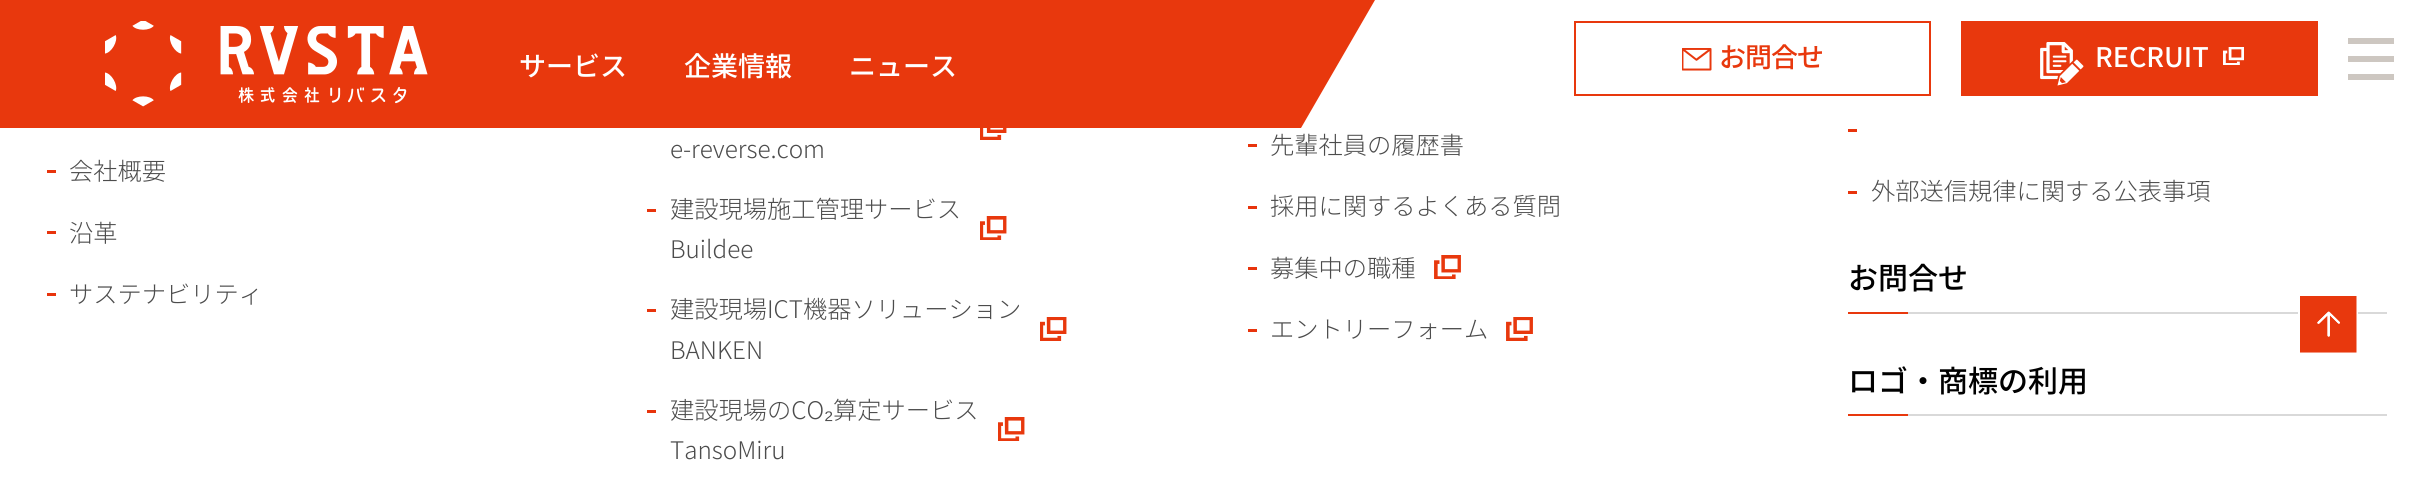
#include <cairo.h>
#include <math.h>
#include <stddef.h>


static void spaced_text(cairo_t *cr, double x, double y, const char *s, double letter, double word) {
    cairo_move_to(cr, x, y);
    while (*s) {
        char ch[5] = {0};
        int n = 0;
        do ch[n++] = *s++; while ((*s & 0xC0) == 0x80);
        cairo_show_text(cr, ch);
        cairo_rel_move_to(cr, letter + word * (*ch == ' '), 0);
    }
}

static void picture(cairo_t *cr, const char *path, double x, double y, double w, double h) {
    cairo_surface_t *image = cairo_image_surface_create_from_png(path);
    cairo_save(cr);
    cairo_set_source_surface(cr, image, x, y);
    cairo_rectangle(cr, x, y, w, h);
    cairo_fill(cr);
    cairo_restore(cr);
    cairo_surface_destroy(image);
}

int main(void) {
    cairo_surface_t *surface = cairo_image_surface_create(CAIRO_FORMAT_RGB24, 2432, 503);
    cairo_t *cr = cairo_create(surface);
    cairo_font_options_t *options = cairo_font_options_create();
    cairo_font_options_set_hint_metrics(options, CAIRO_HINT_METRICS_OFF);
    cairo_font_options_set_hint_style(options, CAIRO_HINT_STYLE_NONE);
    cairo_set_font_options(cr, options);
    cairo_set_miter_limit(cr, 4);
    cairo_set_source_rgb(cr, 1, 1, 1);
    cairo_paint(cr);
    cairo_set_source_rgb(cr, 0.91, 0.22, 0.051);
    cairo_new_path(cr);
    cairo_move_to(cr, -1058, 0);
    cairo_line_to(cr, 1375, 0);
    cairo_line_to(cr, 1301, 128);
    cairo_line_to(cr, -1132, 128);
    cairo_close_path(cr);
    cairo_fill(cr);
    picture(cr, "img1.png", 105, 21, 323, 86);
    cairo_select_font_face(cr, "Noto Sans JP Medium", CAIRO_FONT_SLANT_NORMAL, CAIRO_FONT_WEIGHT_NORMAL);
    cairo_set_font_size(cr, 27);
    cairo_set_source_rgb(cr, 1, 1, 1);
    cairo_move_to(cr, 519, 76);
    cairo_show_text(cr, "サービス");
    cairo_move_to(cr, 684, 76);
    cairo_show_text(cr, "企業情報");
    cairo_move_to(cr, 849, 76);
    cairo_show_text(cr, "ニュース");
    cairo_rectangle(cr, 1575, 22, 355, 73);
    cairo_set_source_rgb(cr, 0.91, 0.22, 0.051);
    cairo_stroke(cr);
    picture(cr, "img2.png", 1682, 48, 30, 23);
    spaced_text(cr, 1719, 67, "お問合せ", -1, 0);
    cairo_rectangle(cr, 1961, 21, 357, 75);
    cairo_fill(cr);
    picture(cr, "img3.png", 2040, 42, 44, 44);
    cairo_set_source_rgb(cr, 1, 1, 1);
    cairo_move_to(cr, 2095, 67);
    cairo_show_text(cr, "RECRUIT");
    picture(cr, "img4.png", 2223, 47, 21, 18);
    cairo_set_source_rgb(cr, 0.804, 0.78, 0.757);
    cairo_rectangle(cr, 2348, 38, 46, 6);
    cairo_fill(cr);
    cairo_rectangle(cr, 2348, 56, 46, 6);
    cairo_fill(cr);
    cairo_rectangle(cr, 2348, 74, 46, 6);
    cairo_fill(cr);
    cairo_set_source_rgb(cr, 0.91, 0.204, 0.047);
    cairo_rectangle(cr, 47, 170, 9, 3);
    cairo_fill(cr);
    cairo_select_font_face(cr, "Noto Sans JP Light", CAIRO_FONT_SLANT_NORMAL, CAIRO_FONT_WEIGHT_NORMAL);
    cairo_set_font_size(cr, 24.25);
    cairo_set_source_rgb(cr, 0.298, 0.298, 0.298);
    cairo_move_to(cr, 69, 180);
    cairo_show_text(cr, "会社概要");
    cairo_set_source_rgb(cr, 0.91, 0.204, 0.047);
    cairo_rectangle(cr, 47, 231, 9, 3);
    cairo_fill(cr);
    cairo_set_source_rgb(cr, 0.298, 0.298, 0.298);
    cairo_move_to(cr, 69, 242);
    cairo_show_text(cr, "沿革");
    cairo_set_source_rgb(cr, 0.91, 0.204, 0.047);
    cairo_rectangle(cr, 47, 293, 9, 3);
    cairo_fill(cr);
    cairo_set_source_rgb(cr, 0.298, 0.298, 0.298);
    cairo_move_to(cr, 69, 303);
    cairo_show_text(cr, "サステナビリティ");
    picture(cr, "img5.png", 980, 128, 27, 12);
    cairo_move_to(cr, 670, 158);
    cairo_show_text(cr, "e-reverse.com");
    cairo_set_source_rgb(cr, 0.91, 0.204, 0.047);
    cairo_rectangle(cr, 647, 209, 9, 3);
    cairo_fill(cr);
    picture(cr, "img6.png", 980, 216, 27, 24);
    cairo_set_source_rgb(cr, 0.298, 0.298, 0.298);
    cairo_move_to(cr, 670, 218);
    cairo_show_text(cr, "建設現場施工管理サービス");
    cairo_move_to(cr, 670, 258);
    cairo_show_text(cr, "Buildee");
    cairo_set_source_rgb(cr, 0.91, 0.204, 0.047);
    cairo_rectangle(cr, 647, 309, 9, 3);
    cairo_fill(cr);
    picture(cr, "img7.png", 1040, 317, 27, 24);
    cairo_set_source_rgb(cr, 0.298, 0.298, 0.298);
    cairo_move_to(cr, 670, 318);
    cairo_show_text(cr, "建設現場ICT機器ソリューション");
    cairo_move_to(cr, 670, 359);
    cairo_show_text(cr, "BANKEN");
    cairo_set_source_rgb(cr, 0.91, 0.204, 0.047);
    cairo_rectangle(cr, 647, 410, 9, 3);
    cairo_fill(cr);
    picture(cr, "img6.png", 998, 417, 27, 24);
    cairo_set_source_rgb(cr, 0.298, 0.298, 0.298);
    cairo_move_to(cr, 670, 419);
    cairo_show_text(cr, "建設現場のCO");
    cairo_select_font_face(cr, "Liberation Sans", CAIRO_FONT_SLANT_NORMAL, CAIRO_FONT_WEIGHT_NORMAL);
    cairo_move_to(cr, 824, 419);
    cairo_show_text(cr, "₂");
    cairo_select_font_face(cr, "Noto Sans JP Light", CAIRO_FONT_SLANT_NORMAL, CAIRO_FONT_WEIGHT_NORMAL);
    cairo_move_to(cr, 833, 419);
    cairo_show_text(cr, "算定サービス");
    cairo_move_to(cr, 670, 459);
    cairo_show_text(cr, "TansoMiru");
    cairo_set_source_rgb(cr, 0.91, 0.204, 0.047);
    cairo_rectangle(cr, 1248, 144, 9, 3);
    cairo_fill(cr);
    cairo_set_source_rgb(cr, 0.298, 0.298, 0.298);
    cairo_move_to(cr, 1270, 154);
    cairo_show_text(cr, "先輩社員の履歴書");
    cairo_set_source_rgb(cr, 0.91, 0.204, 0.047);
    cairo_rectangle(cr, 1248, 206, 9, 3);
    cairo_fill(cr);
    cairo_set_source_rgb(cr, 0.298, 0.298, 0.298);
    cairo_move_to(cr, 1270, 215);
    cairo_show_text(cr, "採用に関するよくある質問");
    cairo_set_source_rgb(cr, 0.91, 0.204, 0.047);
    cairo_rectangle(cr, 1248, 267, 9, 3);
    cairo_fill(cr);
    picture(cr, "img8.png", 1434, 255, 27, 24);
    cairo_set_source_rgb(cr, 0.298, 0.298, 0.298);
    cairo_move_to(cr, 1270, 277);
    cairo_show_text(cr, "募集中の職種");
    cairo_set_source_rgb(cr, 0.91, 0.204, 0.047);
    cairo_rectangle(cr, 1248, 329, 9, 3);
    cairo_fill(cr);
    picture(cr, "img9.png", 1506, 317, 27, 24);
    cairo_set_source_rgb(cr, 0.298, 0.298, 0.298);
    cairo_move_to(cr, 1270, 338);
    cairo_show_text(cr, "エントリーフォーム");
    cairo_set_source_rgb(cr, 0.91, 0.204, 0.047);
    cairo_rectangle(cr, 1848, 129, 9, 3);
    cairo_fill(cr);
    cairo_rectangle(cr, 1848, 191, 9, 3);
    cairo_fill(cr);
    cairo_set_source_rgb(cr, 0.298, 0.298, 0.298);
    cairo_move_to(cr, 1871, 200);
    cairo_show_text(cr, "外部送信規律に関する公表事項");
    cairo_set_source_rgb(cr, 0.851, 0.851, 0.851);
    cairo_rectangle(cr, 1908, 312, 479, 2);
    cairo_fill(cr);
    cairo_select_font_face(cr, "Noto Sans JP Medium", CAIRO_FONT_SLANT_NORMAL, CAIRO_FONT_WEIGHT_NORMAL);
    cairo_set_font_size(cr, 30);
    cairo_set_source_rgb(cr, 0, 0, 0);
    cairo_move_to(cr, 1848, 289);
    cairo_show_text(cr, "お問合せ");
    cairo_set_source_rgb(cr, 0.91, 0.22, 0.051);
    cairo_rectangle(cr, 1848, 312, 60, 2);
    cairo_fill(cr);
    cairo_set_source_rgb(cr, 0.851, 0.851, 0.851);
    cairo_rectangle(cr, 1908, 414, 479, 2);
    cairo_fill(cr);
    cairo_set_source_rgb(cr, 0, 0, 0);
    cairo_move_to(cr, 1848, 392);
    cairo_show_text(cr, "ロゴ・商標の利用");
    cairo_set_source_rgb(cr, 0.91, 0.22, 0.051);
    cairo_rectangle(cr, 1848, 414, 60, 2);
    cairo_fill(cr);
    cairo_rectangle(cr, 2299, 295, 58, 58);
    cairo_set_source_rgb(cr, 1, 1, 1);
    cairo_stroke(cr);
    picture(cr, "img10.png", 2300, 296, 57, 57);
    cairo_surface_write_to_png(surface, "page.png");
    cairo_font_options_destroy(options);
    cairo_destroy(cr);
    cairo_surface_destroy(surface);
    return 0;
}
